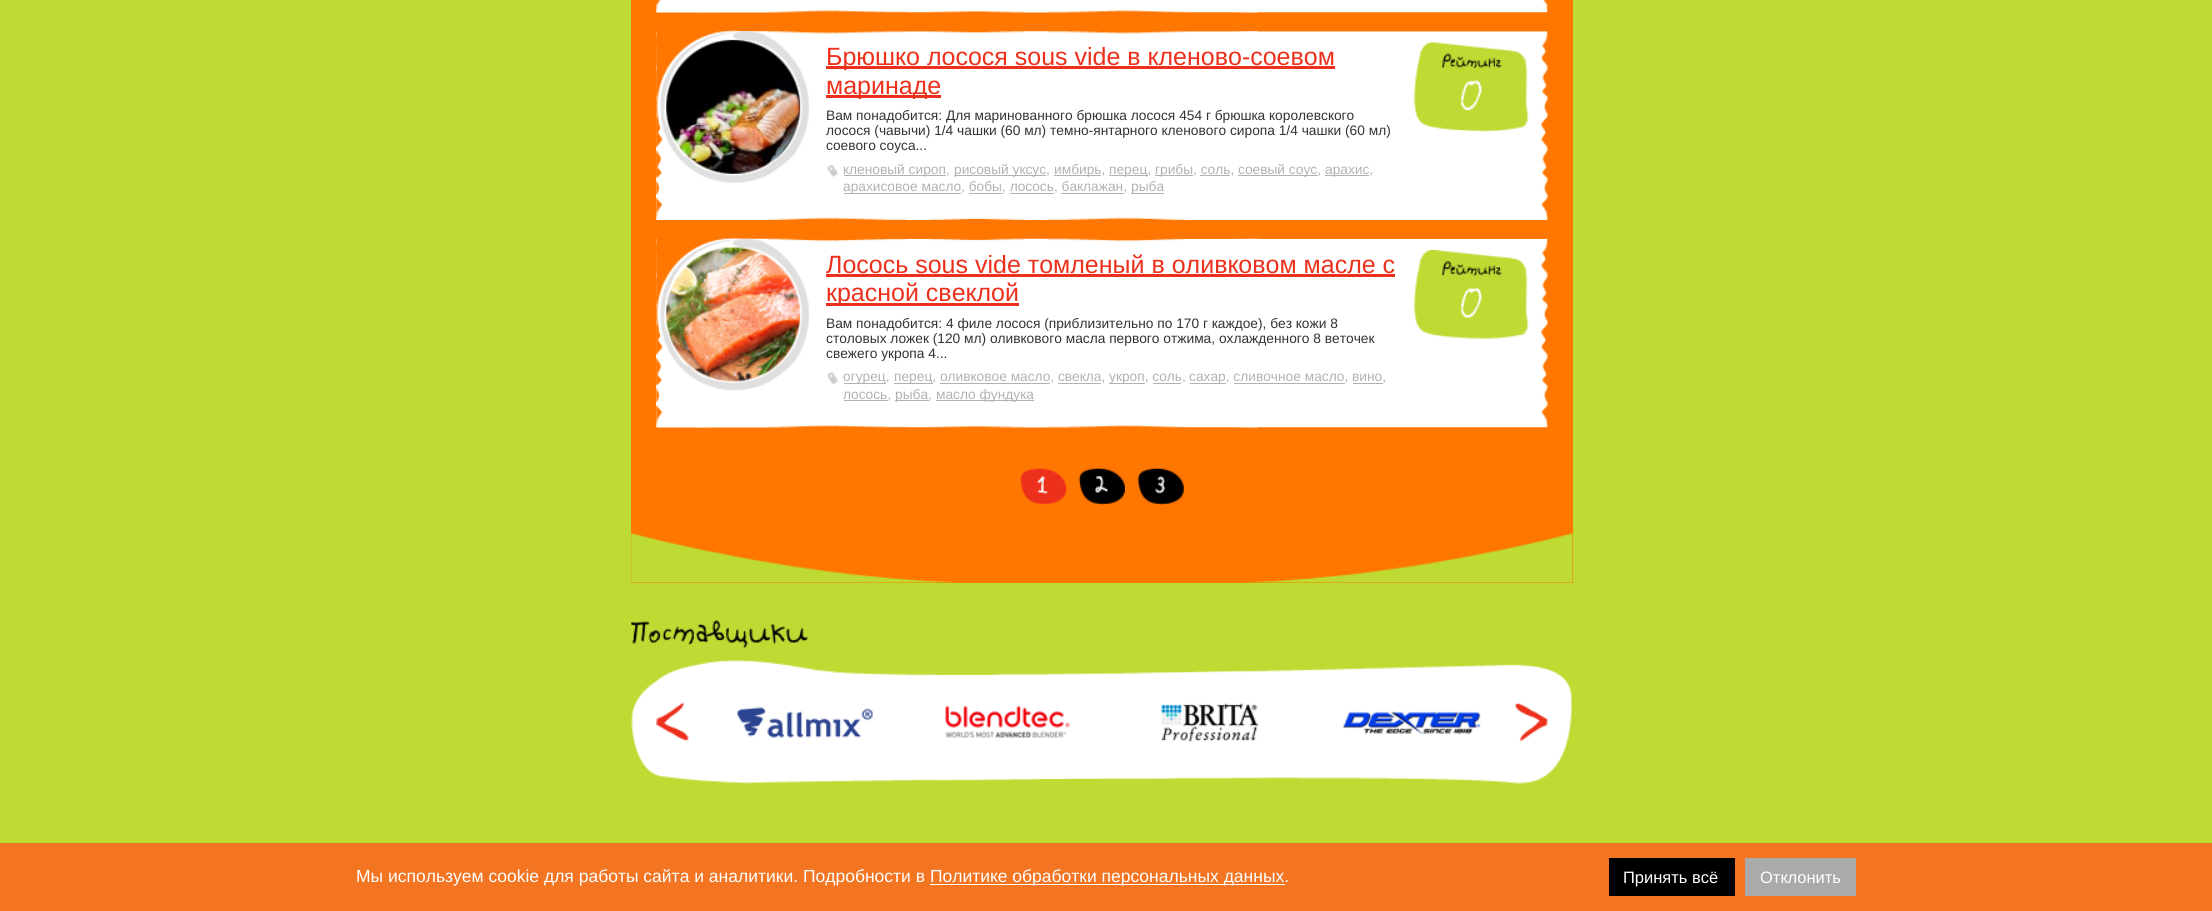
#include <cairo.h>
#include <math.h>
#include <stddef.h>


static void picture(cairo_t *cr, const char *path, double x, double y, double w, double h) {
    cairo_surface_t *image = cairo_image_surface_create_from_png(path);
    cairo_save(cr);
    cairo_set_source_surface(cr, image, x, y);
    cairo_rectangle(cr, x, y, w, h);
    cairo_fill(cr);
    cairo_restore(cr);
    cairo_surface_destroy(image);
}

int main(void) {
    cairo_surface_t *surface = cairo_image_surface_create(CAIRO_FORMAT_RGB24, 2212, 911);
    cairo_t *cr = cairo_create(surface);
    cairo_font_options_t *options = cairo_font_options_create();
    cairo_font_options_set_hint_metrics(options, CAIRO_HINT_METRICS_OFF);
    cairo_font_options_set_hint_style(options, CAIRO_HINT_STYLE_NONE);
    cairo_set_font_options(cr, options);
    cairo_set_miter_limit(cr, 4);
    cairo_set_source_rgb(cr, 0.745, 0.859, 0.204);
    cairo_paint(cr);
    cairo_set_source_rgb(cr, 1, 0.463, 0);
    cairo_rectangle(cr, 631, 0, 942, 583);
    cairo_fill(cr);
    picture(cr, "img1.png", 1542, 0, 6, 7);
    picture(cr, "img2.png", 656, 0, 6, 7);
    picture(cr, "img3.png", 656, 0, 602, 13);
    picture(cr, "img4.png", 696, 0, 852, 13);
    picture(cr, "img5.png", 1541, 43, 7, 171);
    picture(cr, "img6.png", 656, 31, 602, 9);
    cairo_set_source_rgb(cr, 1, 1, 1);
    cairo_rectangle(cr, 656, 44, 885, 170);
    cairo_fill(cr);
    picture(cr, "img7.png", 740, 31, 808, 16);
    picture(cr, "img8.png", 656, 43, 8, 171);
    picture(cr, "img10.png", 666, 39, 135, 135);
    picture(cr, "img9.png", 656, 30, 154, 154);
    cairo_set_source_rgb(cr, 0.929, 0.188, 0.11);
    cairo_rectangle(cr, 826, 66, 509, 3);
    cairo_fill(cr);
    cairo_select_font_face(cr, "Liberation Sans", CAIRO_FONT_SLANT_NORMAL, CAIRO_FONT_WEIGHT_NORMAL);
    cairo_set_font_size(cr, 25);
    cairo_move_to(cr, 826, 65);
    cairo_show_text(cr, "Брюшко лосося sous vide в кленово-соевом");
    cairo_rectangle(cr, 826, 95, 115, 3);
    cairo_fill(cr);
    cairo_move_to(cr, 826, 94);
    cairo_show_text(cr, "маринаде");
    cairo_set_font_size(cr, 13.75);
    cairo_set_source_rgb(cr, 0.2, 0.2, 0.2);
    cairo_move_to(cr, 826, 120);
    cairo_show_text(cr, "Вам понадобится: Для маринованного брюшка лосося 454 г брюшка королевского");
    cairo_move_to(cr, 826, 135);
    cairo_show_text(cr, "лосося (чавычи) 1/4 чашки (60 мл) темно-янтарного кленового сиропа 1/4 чашки (60 мл)");
    cairo_move_to(cr, 826, 150);
    cairo_show_text(cr, "соевого соуса...");
    picture(cr, "img11.png", 827, 165, 11, 12);
    cairo_set_source_rgb(cr, 0.698, 0.698, 0.698);
    cairo_rectangle(cr, 844, 175, 102, 1);
    cairo_fill(cr);
    cairo_move_to(cr, 843, 174);
    cairo_show_text(cr, "кленовый сироп,");
    cairo_rectangle(cr, 954, 175, 92, 1);
    cairo_fill(cr);
    cairo_move_to(cr, 954, 174);
    cairo_show_text(cr, "рисовый уксус,");
    cairo_rectangle(cr, 1054, 175, 47, 1);
    cairo_fill(cr);
    cairo_move_to(cr, 1054, 174);
    cairo_show_text(cr, "имбирь,");
    cairo_rectangle(cr, 1109, 175, 39, 1);
    cairo_fill(cr);
    cairo_move_to(cr, 1109, 174);
    cairo_show_text(cr, "перец,");
    cairo_rectangle(cr, 1155, 175, 38, 1);
    cairo_fill(cr);
    cairo_move_to(cr, 1155, 174);
    cairo_show_text(cr, "грибы, соль,");
    cairo_rectangle(cr, 1238, 175, 80, 1);
    cairo_fill(cr);
    cairo_move_to(cr, 1238, 174);
    cairo_show_text(cr, "соевый соус,");
    cairo_rectangle(cr, 1325, 175, 44, 1);
    cairo_fill(cr);
    cairo_move_to(cr, 1325, 174);
    cairo_show_text(cr, "арахис,");
    cairo_rectangle(cr, 1200, 175, 30, 1);
    cairo_fill(cr);
    cairo_rectangle(cr, 844, 193, 117, 1);
    cairo_fill(cr);
    cairo_move_to(cr, 843, 191);
    cairo_show_text(cr, "арахисовое масло, бобы, лосось, баклажан,");
    cairo_rectangle(cr, 1131, 193, 33, 1);
    cairo_fill(cr);
    cairo_move_to(cr, 1131, 191);
    cairo_show_text(cr, "рыба");
    cairo_rectangle(cr, 969, 193, 34, 1);
    cairo_fill(cr);
    cairo_rectangle(cr, 1010, 193, 44, 1);
    cairo_fill(cr);
    cairo_rectangle(cr, 1061, 193, 63, 1);
    cairo_fill(cr);
    picture(cr, "img12.png", 1413, 42, 116, 90);
    picture(cr, "img13.png", 1442, 53, 60, 16);
    picture(cr, "img14.png", 1461, 80, 22, 31);
    picture(cr, "img15.png", 656, 204, 530, 16);
    picture(cr, "img16.png", 802, 204, 746, 16);
    picture(cr, "img17.png", 1541, 251, 7, 171);
    picture(cr, "img18.png", 656, 238, 602, 10);
    cairo_set_source_rgb(cr, 1, 1, 1);
    cairo_rectangle(cr, 656, 251, 885, 170);
    cairo_fill(cr);
    picture(cr, "img19.png", 739, 238, 809, 16);
    picture(cr, "img20.png", 656, 251, 8, 171);
    picture(cr, "img22.png", 666, 247, 135, 135);
    picture(cr, "img21.png", 656, 237, 154, 154);
    cairo_set_font_size(cr, 25);
    cairo_set_source_rgb(cr, 0.929, 0.188, 0.11);
    cairo_move_to(cr, 826, 273);
    cairo_show_text(cr, "Лосось sous vide томленый в оливковом масле с");
    cairo_rectangle(cr, 826, 274, 569, 3);
    cairo_fill(cr);
    cairo_rectangle(cr, 826, 303, 193, 3);
    cairo_fill(cr);
    cairo_move_to(cr, 826, 301);
    cairo_show_text(cr, "красной свеклой");
    cairo_set_font_size(cr, 13.75);
    cairo_set_source_rgb(cr, 0.2, 0.2, 0.2);
    cairo_move_to(cr, 826, 328);
    cairo_show_text(cr, "Вам понадобится: 4 филе лосося (приблизительно по 170 г каждое), без кожи 8");
    cairo_move_to(cr, 826, 343);
    cairo_show_text(cr, "столовых ложек (120 мл) оливкового масла первого отжима, охлажденного 8 веточек");
    cairo_move_to(cr, 826, 358);
    cairo_show_text(cr, "свежего укропа 4...");
    picture(cr, "img23.png", 827, 372, 11, 12);
    cairo_set_source_rgb(cr, 0.698, 0.698, 0.698);
    cairo_rectangle(cr, 844, 383, 42, 1);
    cairo_fill(cr);
    cairo_move_to(cr, 843, 381);
    cairo_show_text(cr, "огурец,");
    cairo_rectangle(cr, 894, 383, 39, 1);
    cairo_fill(cr);
    cairo_move_to(cr, 894, 381);
    cairo_show_text(cr, "перец, оливковое масло, свекла,");
    cairo_rectangle(cr, 1109, 383, 36, 1);
    cairo_fill(cr);
    cairo_move_to(cr, 1109, 381);
    cairo_show_text(cr, "укроп, соль,");
    cairo_rectangle(cr, 1190, 383, 36, 1);
    cairo_fill(cr);
    cairo_move_to(cr, 1189, 381);
    cairo_show_text(cr, "сахар, сливочное масло, вино,");
    cairo_rectangle(cr, 940, 383, 110, 1);
    cairo_fill(cr);
    cairo_rectangle(cr, 1058, 383, 43, 1);
    cairo_fill(cr);
    cairo_rectangle(cr, 1153, 383, 28, 1);
    cairo_fill(cr);
    cairo_rectangle(cr, 1234, 383, 111, 1);
    cairo_fill(cr);
    cairo_rectangle(cr, 1353, 383, 30, 1);
    cairo_fill(cr);
    cairo_rectangle(cr, 844, 400, 44, 1);
    cairo_fill(cr);
    cairo_move_to(cr, 843, 399);
    cairo_show_text(cr, "лосось,");
    cairo_rectangle(cr, 895, 400, 34, 1);
    cairo_fill(cr);
    cairo_move_to(cr, 895, 399);
    cairo_show_text(cr, "рыба,");
    cairo_rectangle(cr, 936, 400, 98, 1);
    cairo_fill(cr);
    cairo_move_to(cr, 936, 399);
    cairo_show_text(cr, "масло фундука");
    picture(cr, "img24.png", 1413, 250, 116, 89);
    picture(cr, "img25.png", 1442, 261, 60, 16);
    picture(cr, "img26.png", 1461, 287, 22, 31);
    picture(cr, "img27.png", 656, 411, 602, 17);
    picture(cr, "img28.png", 696, 411, 852, 17);
    picture(cr, "img29.png", 1020, 468, 47, 37);
    picture(cr, "img30.png", 1037, 476, 11, 18);
    picture(cr, "img31.png", 1078, 468, 47, 37);
    picture(cr, "img32.png", 1095, 476, 13, 17);
    picture(cr, "img33.png", 1137, 468, 47, 37);
    picture(cr, "img34.png", 1155, 476, 11, 18);
    picture(cr, "img35.png", 631, 532, 326, 51);
    picture(cr, "img36.png", 1247, 532, 326, 51);
    picture(cr, "img37.png", 631, 620, 177, 28);
    picture(cr, "img38.png", 905, 664, 668, 120);
    picture(cr, "img39.png", 631, 660, 646, 124);
    picture(cr, "img40.png", 656, 702, 33, 39);
    picture(cr, "img41.png", 737, 707, 136, 31);
    picture(cr, "img42.png", 945, 706, 125, 32);
    picture(cr, "img43.png", 1161, 703, 98, 39);
    picture(cr, "img44.png", 1342, 711, 139, 24);
    picture(cr, "img45.png", 1515, 702, 33, 40);
    cairo_set_source_rgb(cr, 0.953, 0.455, 0.129);
    cairo_rectangle(cr, 0, 843, 2212, 68);
    cairo_fill(cr);
    cairo_set_font_size(cr, 17.5);
    cairo_set_source_rgb(cr, 1, 1, 1);
    cairo_move_to(cr, 356, 882);
    cairo_show_text(cr, "Мы используем cookie для работы сайта и аналитики. Подробности в");
    cairo_rectangle(cr, 930, 884, 355, 1);
    cairo_fill(cr);
    cairo_move_to(cr, 930, 882);
    cairo_show_text(cr, "Политике обработки персональных данных.");
    cairo_set_source_rgb(cr, 0, 0, 0);
    cairo_rectangle(cr, 1609, 858, 126, 38);
    cairo_fill(cr);
    cairo_set_font_size(cr, 16.5);
    cairo_set_source_rgb(cr, 1, 1, 1);
    cairo_move_to(cr, 1623, 883);
    cairo_show_text(cr, "Принять всё");
    cairo_set_source_rgb(cr, 0.667, 0.667, 0.667);
    cairo_rectangle(cr, 1745, 858, 111, 38);
    cairo_fill(cr);
    cairo_set_source_rgb(cr, 1, 1, 1);
    cairo_move_to(cr, 1760, 883);
    cairo_show_text(cr, "Отклонить");
    cairo_surface_write_to_png(surface, "page.png");
    cairo_font_options_destroy(options);
    cairo_destroy(cr);
    cairo_surface_destroy(surface);
    return 0;
}
